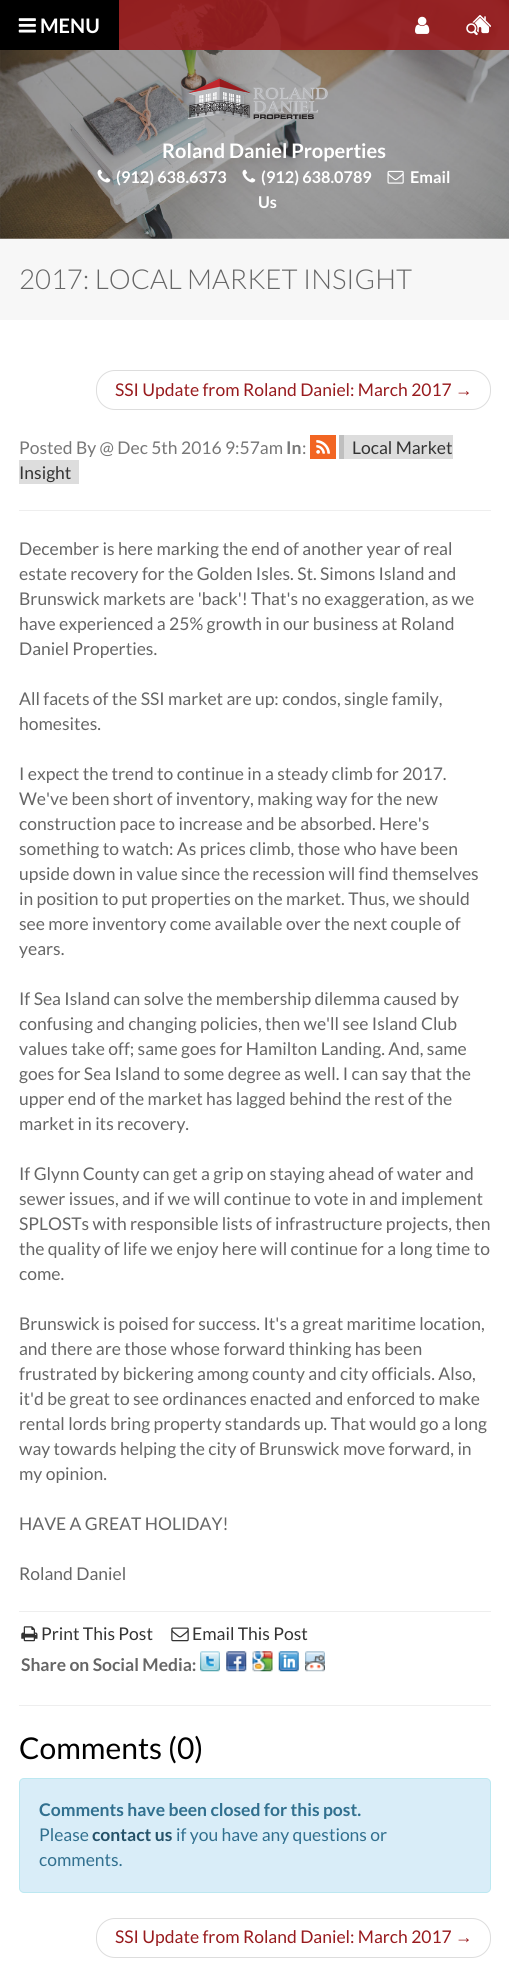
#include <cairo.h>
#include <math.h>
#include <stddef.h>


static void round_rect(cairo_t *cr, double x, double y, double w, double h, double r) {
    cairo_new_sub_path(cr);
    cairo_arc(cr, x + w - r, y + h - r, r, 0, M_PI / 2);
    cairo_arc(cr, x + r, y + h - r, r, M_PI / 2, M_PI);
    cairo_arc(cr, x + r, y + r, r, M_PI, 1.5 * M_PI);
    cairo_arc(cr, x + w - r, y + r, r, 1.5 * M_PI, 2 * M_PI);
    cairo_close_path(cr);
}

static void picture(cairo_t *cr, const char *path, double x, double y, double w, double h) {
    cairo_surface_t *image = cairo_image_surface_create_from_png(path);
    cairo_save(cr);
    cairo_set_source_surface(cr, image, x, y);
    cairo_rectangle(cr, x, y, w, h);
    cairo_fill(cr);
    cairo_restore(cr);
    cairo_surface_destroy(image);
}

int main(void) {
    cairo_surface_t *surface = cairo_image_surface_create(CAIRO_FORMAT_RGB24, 509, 1975);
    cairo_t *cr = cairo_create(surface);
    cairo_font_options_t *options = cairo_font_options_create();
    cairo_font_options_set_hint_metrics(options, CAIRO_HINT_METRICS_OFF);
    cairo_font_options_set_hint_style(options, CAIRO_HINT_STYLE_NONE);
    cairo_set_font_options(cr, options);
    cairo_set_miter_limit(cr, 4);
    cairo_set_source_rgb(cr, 1, 1, 1);
    cairo_paint(cr);
    picture(cr, "img4.png", 0, 0, 509, 239);
    cairo_set_source_rgba(cr, 0.596, 0.106, 0.118, 0.9);
    cairo_rectangle(cr, 119, 0, 390, 50);
    cairo_fill(cr);
    cairo_set_source_rgb(cr, 0, 0, 0);
    cairo_rectangle(cr, 0, 0, 119, 50);
    cairo_fill(cr);
    picture(cr, "img1.png", 18, 18, 18, 15);
    cairo_select_font_face(cr, "Lato", CAIRO_FONT_SLANT_NORMAL, CAIRO_FONT_WEIGHT_BOLD);
    cairo_set_font_size(cr, 20);
    cairo_set_source_rgb(cr, 1, 1, 1);
    cairo_move_to(cr, 40, 33);
    cairo_show_text(cr, "MENU");
    picture(cr, "img2.png", 415, 16, 15, 18);
    picture(cr, "img3.png", 466, 15, 25, 21);
    picture(cr, "img5.png", 187, 76, 141, 44);
    cairo_move_to(cr, 162, 158);
    cairo_show_text(cr, "Roland Daniel Properties");
    picture(cr, "img6.png", 97, 169, 14, 14);
    cairo_set_font_size(cr, 16.25);
    cairo_move_to(cr, 116, 183);
    cairo_show_text(cr, "(912) 638.6373");
    picture(cr, "img7.png", 387, 170, 17, 14);
    cairo_move_to(cr, 410, 183);
    cairo_show_text(cr, "Email");
    cairo_move_to(cr, 258, 208);
    cairo_show_text(cr, "Us");
    picture(cr, "img8.png", 242, 169, 14, 14);
    cairo_move_to(cr, 261, 183);
    cairo_show_text(cr, "(912) 638.0789");
    cairo_set_source_rgb(cr, 0.965, 0.965, 0.965);
    cairo_rectangle(cr, 0, 239, 509, 81);
    cairo_fill(cr);
    cairo_select_font_face(cr, "Lato Light", CAIRO_FONT_SLANT_NORMAL, CAIRO_FONT_WEIGHT_NORMAL);
    cairo_set_font_size(cr, 27.5);
    cairo_set_source_rgb(cr, 0.4, 0.4, 0.4);
    cairo_move_to(cr, 19, 289);
    cairo_show_text(cr, "2017: LOCAL MARKET INSIGHT");
    round_rect(cr, 96.5, 370.5, 394, 39, 18.5);
    cairo_set_source_rgb(cr, 0.867, 0.867, 0.867);
    cairo_set_line_width(cr, 1);
    cairo_stroke(cr);
    cairo_select_font_face(cr, "Lato", CAIRO_FONT_SLANT_NORMAL, CAIRO_FONT_WEIGHT_NORMAL);
    cairo_set_font_size(cr, 17.5);
    cairo_set_source_rgb(cr, 0.596, 0.106, 0.118);
    cairo_move_to(cr, 115, 396);
    cairo_show_text(cr, "SSI Update from Roland Daniel: March 2017");
    cairo_select_font_face(cr, "Liberation Sans", CAIRO_FONT_SLANT_NORMAL, CAIRO_FONT_WEIGHT_NORMAL);
    cairo_move_to(cr, 455, 396);
    cairo_show_text(cr, "→");
    cairo_select_font_face(cr, "Lato", CAIRO_FONT_SLANT_NORMAL, CAIRO_FONT_WEIGHT_NORMAL);
    cairo_set_source_rgb(cr, 0.467, 0.467, 0.467);
    cairo_move_to(cr, 19, 454);
    cairo_show_text(cr, "Posted By @ Dec 5th 2016 9:57am");
    cairo_select_font_face(cr, "Lato", CAIRO_FONT_SLANT_NORMAL, CAIRO_FONT_WEIGHT_BOLD);
    cairo_move_to(cr, 286, 454);
    cairo_show_text(cr, "In");
    cairo_select_font_face(cr, "Lato", CAIRO_FONT_SLANT_NORMAL, CAIRO_FONT_WEIGHT_NORMAL);
    cairo_move_to(cr, 302, 454);
    cairo_show_text(cr, ":");
    cairo_set_source_rgb(cr, 0.949, 0.396, 0.133);
    cairo_rectangle(cr, 310, 435, 26, 24);
    cairo_fill(cr);
    picture(cr, "img9.png", 316, 440, 14, 14);
    cairo_set_source_rgb(cr, 0.867, 0.867, 0.867);
    cairo_rectangle(cr, 344, 435, 109, 24);
    cairo_fill(cr);
    cairo_set_source_rgb(cr, 0.2, 0.2, 0.2);
    cairo_move_to(cr, 352, 454);
    cairo_show_text(cr, "Local Market");
    cairo_set_source_rgb(cr, 0.749, 0.749, 0.749);
    cairo_rectangle(cr, 339, 435, 5, 24);
    cairo_fill(cr);
    cairo_set_source_rgb(cr, 0.867, 0.867, 0.867);
    cairo_rectangle(cr, 19, 460, 60, 24);
    cairo_fill(cr);
    cairo_set_source_rgb(cr, 0.2, 0.2, 0.2);
    cairo_move_to(cr, 19, 479);
    cairo_show_text(cr, "Insight");
    cairo_set_source_rgb(cr, 0.933, 0.933, 0.933);
    cairo_rectangle(cr, 19, 510, 472, 1);
    cairo_fill(cr);
    cairo_set_source_rgb(cr, 0.4, 0.4, 0.4);
    cairo_move_to(cr, 19, 555);
    cairo_show_text(cr, "December is here marking the end of another year of real");
    cairo_move_to(cr, 19, 580);
    cairo_show_text(cr, "estate recovery for the Golden Isles. St. Simons Island and");
    cairo_move_to(cr, 19, 605);
    cairo_show_text(cr, "Brunswick markets are 'back'! That's no exaggeration, as we");
    cairo_move_to(cr, 19, 630);
    cairo_show_text(cr, "have experienced a 25% growth in our business at Roland");
    cairo_move_to(cr, 19, 655);
    cairo_show_text(cr, "Daniel Properties.");
    cairo_move_to(cr, 19, 705);
    cairo_show_text(cr, "All facets of the SSI market are up: condos, single family,");
    cairo_move_to(cr, 19, 730);
    cairo_show_text(cr, "homesites.");
    cairo_move_to(cr, 19, 780);
    cairo_show_text(cr, "I expect the trend to continue in a steady climb for 2017.");
    cairo_move_to(cr, 19, 805);
    cairo_show_text(cr, "We've been short of inventory, making way for the new");
    cairo_move_to(cr, 19, 830);
    cairo_show_text(cr, "construction pace to increase and be absorbed. Here's");
    cairo_move_to(cr, 19, 855);
    cairo_show_text(cr, "something to watch: As prices climb, those who have been");
    cairo_move_to(cr, 19, 880);
    cairo_show_text(cr, "upside down in value since the recession will find themselves");
    cairo_move_to(cr, 19, 905);
    cairo_show_text(cr, "in position to put properties on the market. Thus, we should");
    cairo_move_to(cr, 19, 930);
    cairo_show_text(cr, "see more inventory come available over the next couple of");
    cairo_move_to(cr, 19, 955);
    cairo_show_text(cr, "years.");
    cairo_move_to(cr, 19, 1005);
    cairo_show_text(cr, "If Sea Island can solve the membership dilemma caused by");
    cairo_move_to(cr, 19, 1030);
    cairo_show_text(cr, "confusing and changing policies, then we'll see Island Club");
    cairo_move_to(cr, 19, 1055);
    cairo_show_text(cr, "values take off; same goes for Hamilton Landing. And, same");
    cairo_move_to(cr, 19, 1080);
    cairo_show_text(cr, "goes for Sea Island to some degree as well. I can say that the");
    cairo_move_to(cr, 19, 1105);
    cairo_show_text(cr, "upper end of the market has lagged behind the rest of the");
    cairo_move_to(cr, 19, 1130);
    cairo_show_text(cr, "market in its recovery.");
    cairo_move_to(cr, 19, 1180);
    cairo_show_text(cr, "If Glynn County can get a grip on staying ahead of water and");
    cairo_move_to(cr, 19, 1205);
    cairo_show_text(cr, "sewer issues, and if we will continue to vote in and implement");
    cairo_move_to(cr, 19, 1230);
    cairo_show_text(cr, "SPLOSTs with responsible lists of infrastructure projects, then");
    cairo_move_to(cr, 19, 1255);
    cairo_show_text(cr, "the quality of life we enjoy here will continue for a long time to");
    cairo_move_to(cr, 19, 1280);
    cairo_show_text(cr, "come.");
    cairo_move_to(cr, 19, 1330);
    cairo_show_text(cr, "Brunswick is poised for success. It's a great maritime location,");
    cairo_move_to(cr, 19, 1355);
    cairo_show_text(cr, "and there are those whose forward thinking has been");
    cairo_move_to(cr, 19, 1380);
    cairo_show_text(cr, "frustrated by bickering among county and city officials. Also,");
    cairo_move_to(cr, 19, 1405);
    cairo_show_text(cr, "it'd be great to see ordinances enacted and enforced to make");
    cairo_move_to(cr, 19, 1430);
    cairo_show_text(cr, "rental lords bring property standards up. That would go a long");
    cairo_move_to(cr, 19, 1455);
    cairo_show_text(cr, "way towards helping the city of Brunswick move forward, in");
    cairo_move_to(cr, 19, 1480);
    cairo_show_text(cr, "my opinion.");
    cairo_move_to(cr, 19, 1530);
    cairo_show_text(cr, "HAVE A GREAT HOLIDAY!");
    cairo_move_to(cr, 19, 1580);
    cairo_show_text(cr, "Roland Daniel");
    cairo_set_source_rgb(cr, 0.933, 0.933, 0.933);
    cairo_rectangle(cr, 19, 1611, 472, 1);
    cairo_fill(cr);
    picture(cr, "img10.png", 21, 1626, 17, 16);
    cairo_set_source_rgb(cr, 0.2, 0.2, 0.2);
    cairo_move_to(cr, 41, 1640);
    cairo_show_text(cr, "Print This Post");
    picture(cr, "img11.png", 171, 1627, 18, 15);
    cairo_move_to(cr, 192, 1640);
    cairo_show_text(cr, "Email This Post");
    cairo_select_font_face(cr, "Lato", CAIRO_FONT_SLANT_NORMAL, CAIRO_FONT_WEIGHT_BOLD);
    cairo_set_source_rgb(cr, 0.4, 0.4, 0.4);
    cairo_move_to(cr, 21, 1671);
    cairo_show_text(cr, "Share on Social Media:");
    picture(cr, "img12.png", 200, 1651, 20, 21);
    picture(cr, "img13.png", 226, 1651, 21, 21);
    picture(cr, "img14.png", 252, 1651, 21, 21);
    picture(cr, "img15.png", 278, 1651, 21, 21);
    picture(cr, "img16.png", 305, 1651, 20, 21);
    cairo_set_source_rgb(cr, 0.933, 0.933, 0.933);
    cairo_rectangle(cr, 19, 1705, 472, 1);
    cairo_fill(cr);
    cairo_select_font_face(cr, "Lato", CAIRO_FONT_SLANT_NORMAL, CAIRO_FONT_WEIGHT_NORMAL);
    cairo_set_font_size(cr, 30);
    cairo_set_source_rgb(cr, 0, 0, 0);
    cairo_move_to(cr, 19, 1759);
    cairo_show_text(cr, "Comments (0)");
    cairo_set_source_rgb(cr, 0.851, 0.929, 0.969);
    round_rect(cr, 19.5, 1778.5, 471, 114, 4.5);
    cairo_fill_preserve(cr);
    cairo_set_source_rgb(cr, 0.737, 0.91, 0.945);
    cairo_stroke(cr);
    cairo_select_font_face(cr, "Lato", CAIRO_FONT_SLANT_NORMAL, CAIRO_FONT_WEIGHT_BOLD);
    cairo_set_font_size(cr, 17.5);
    cairo_set_source_rgb(cr, 0.192, 0.439, 0.561);
    cairo_move_to(cr, 39, 1816);
    cairo_show_text(cr, "Comments have been closed for this post.");
    cairo_select_font_face(cr, "Lato", CAIRO_FONT_SLANT_NORMAL, CAIRO_FONT_WEIGHT_NORMAL);
    cairo_move_to(cr, 39, 1841);
    cairo_show_text(cr, "Please");
    cairo_select_font_face(cr, "Lato", CAIRO_FONT_SLANT_NORMAL, CAIRO_FONT_WEIGHT_BOLD);
    cairo_set_source_rgb(cr, 0.141, 0.322, 0.412);
    cairo_move_to(cr, 92, 1841);
    cairo_show_text(cr, "contact us");
    cairo_select_font_face(cr, "Lato", CAIRO_FONT_SLANT_NORMAL, CAIRO_FONT_WEIGHT_NORMAL);
    cairo_set_source_rgb(cr, 0.192, 0.439, 0.561);
    cairo_move_to(cr, 176, 1841);
    cairo_show_text(cr, "if you have any questions or");
    cairo_move_to(cr, 39, 1866);
    cairo_show_text(cr, "comments.");
    round_rect(cr, 96.5, 1918.5, 394, 39, 18.5);
    cairo_set_source_rgb(cr, 0.867, 0.867, 0.867);
    cairo_stroke(cr);
    cairo_set_source_rgb(cr, 0.596, 0.106, 0.118);
    cairo_move_to(cr, 115, 1943);
    cairo_show_text(cr, "SSI Update from Roland Daniel: March 2017");
    cairo_select_font_face(cr, "Liberation Sans", CAIRO_FONT_SLANT_NORMAL, CAIRO_FONT_WEIGHT_NORMAL);
    cairo_move_to(cr, 455, 1943);
    cairo_show_text(cr, "→");
    cairo_surface_write_to_png(surface, "page.png");
    cairo_font_options_destroy(options);
    cairo_destroy(cr);
    cairo_surface_destroy(surface);
    return 0;
}
